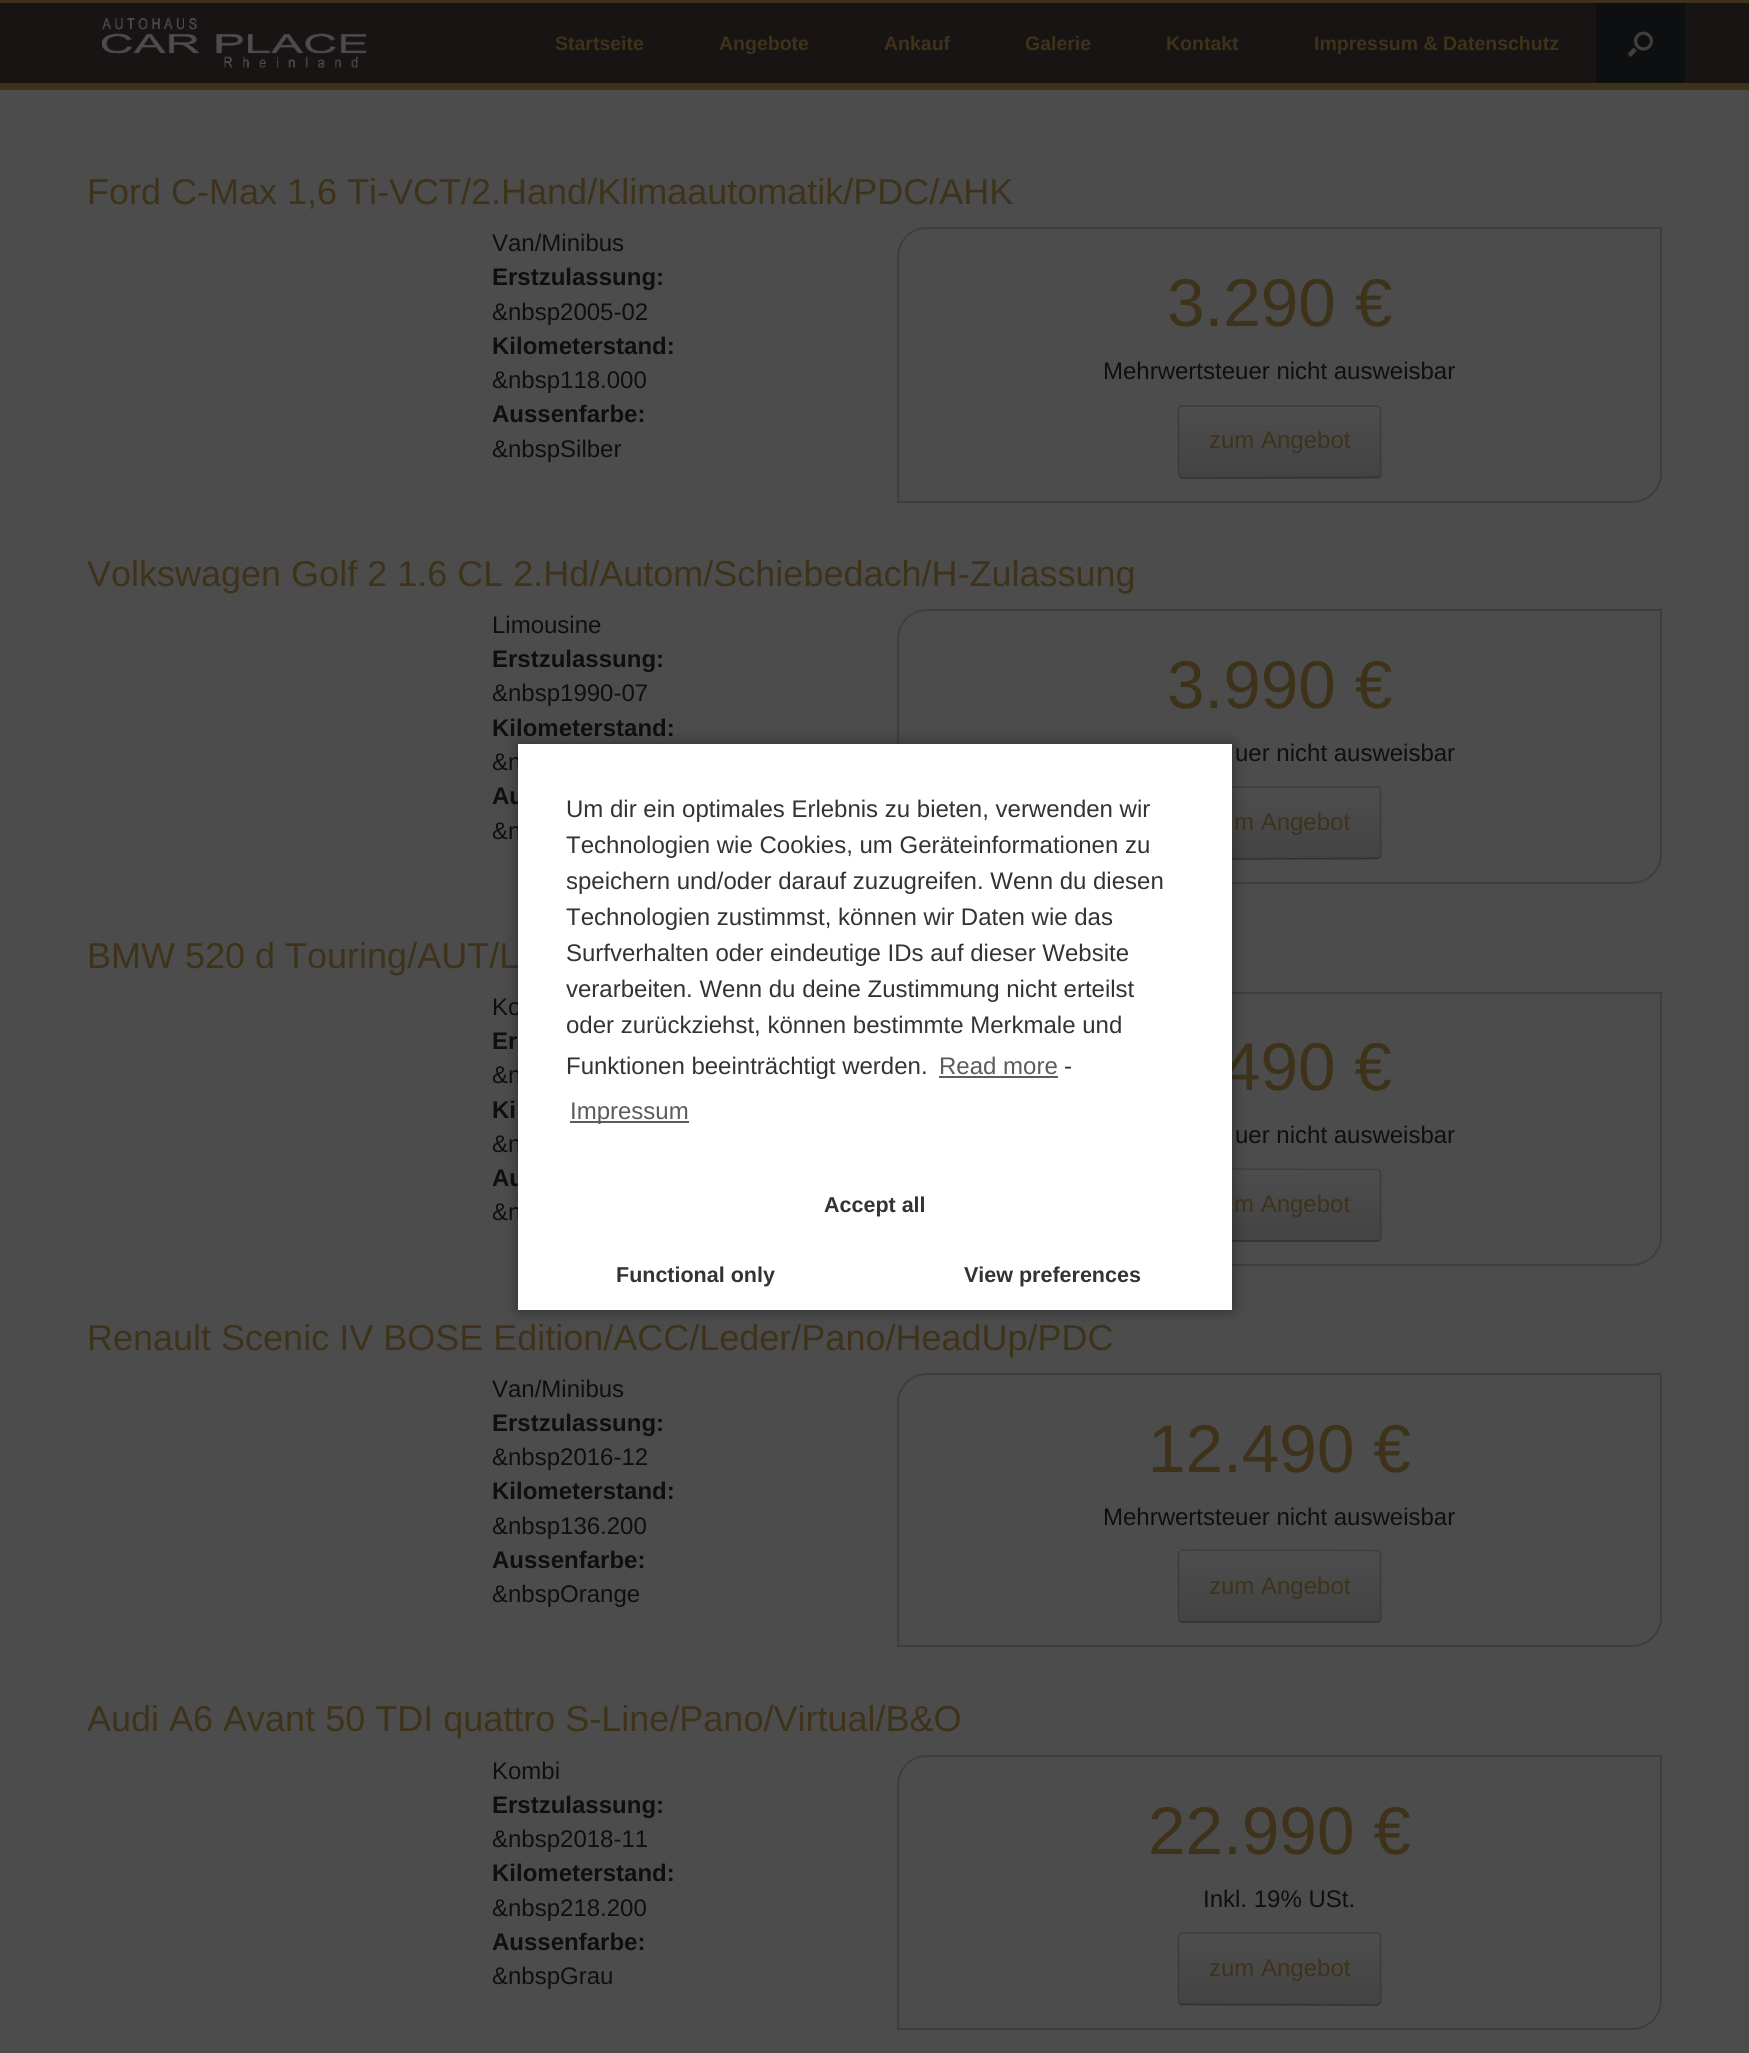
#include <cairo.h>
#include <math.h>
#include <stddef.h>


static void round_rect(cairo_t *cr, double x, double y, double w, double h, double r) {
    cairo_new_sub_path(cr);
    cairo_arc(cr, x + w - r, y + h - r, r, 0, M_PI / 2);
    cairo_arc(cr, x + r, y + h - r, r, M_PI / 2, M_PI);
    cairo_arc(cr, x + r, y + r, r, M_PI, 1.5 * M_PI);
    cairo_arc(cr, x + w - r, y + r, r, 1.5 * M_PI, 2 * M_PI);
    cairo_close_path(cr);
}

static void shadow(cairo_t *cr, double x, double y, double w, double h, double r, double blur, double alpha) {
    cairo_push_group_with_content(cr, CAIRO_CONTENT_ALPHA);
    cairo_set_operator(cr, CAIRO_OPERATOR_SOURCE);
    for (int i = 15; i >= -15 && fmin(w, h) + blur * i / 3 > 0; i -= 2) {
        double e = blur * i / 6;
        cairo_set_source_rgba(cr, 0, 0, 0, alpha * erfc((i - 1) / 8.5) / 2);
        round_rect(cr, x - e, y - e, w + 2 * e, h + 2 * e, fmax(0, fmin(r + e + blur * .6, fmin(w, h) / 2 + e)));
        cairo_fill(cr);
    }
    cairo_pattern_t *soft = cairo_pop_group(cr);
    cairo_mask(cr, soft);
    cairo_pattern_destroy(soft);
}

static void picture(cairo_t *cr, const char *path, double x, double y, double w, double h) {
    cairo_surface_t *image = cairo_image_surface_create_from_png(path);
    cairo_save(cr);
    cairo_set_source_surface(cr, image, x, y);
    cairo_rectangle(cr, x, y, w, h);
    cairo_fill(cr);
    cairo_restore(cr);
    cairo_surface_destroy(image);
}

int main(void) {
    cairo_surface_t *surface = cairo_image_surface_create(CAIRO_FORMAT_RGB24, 1749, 2053);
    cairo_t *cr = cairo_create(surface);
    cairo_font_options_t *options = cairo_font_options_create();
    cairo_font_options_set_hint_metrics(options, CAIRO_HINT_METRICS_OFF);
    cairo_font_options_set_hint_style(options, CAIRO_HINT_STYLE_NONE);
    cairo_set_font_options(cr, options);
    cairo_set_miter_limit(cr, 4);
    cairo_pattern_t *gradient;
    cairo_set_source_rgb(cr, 0.298, 0.298, 0.298);
    cairo_paint(cr);
    cairo_set_source_rgb(cr, 0.09, 0.082, 0.075);
    cairo_rectangle(cr, 0, 3, 1749, 80);
    cairo_fill(cr);
    cairo_set_source_rgb(cr, 0.243, 0.2, 0.102);
    cairo_rectangle(cr, 0, 0, 1749, 3);
    cairo_fill(cr);
    cairo_rectangle(cr, 0, 83, 1749, 7);
    cairo_fill(cr);
    picture(cr, "img1.png", 102, 18, 264, 50);
    cairo_select_font_face(cr, "Liberation Sans", CAIRO_FONT_SLANT_NORMAL, CAIRO_FONT_WEIGHT_BOLD);
    cairo_set_font_size(cr, 19.5);
    cairo_move_to(cr, 555, 50);
    cairo_show_text(cr, "Startseite");
    cairo_move_to(cr, 719, 50);
    cairo_show_text(cr, "Angebote");
    cairo_move_to(cr, 884, 50);
    cairo_show_text(cr, "Ankauf");
    cairo_move_to(cr, 1025, 50);
    cairo_show_text(cr, "Galerie");
    cairo_move_to(cr, 1166, 50);
    cairo_show_text(cr, "Kontakt");
    cairo_move_to(cr, 1314, 50);
    cairo_show_text(cr, "Impressum & Datenschutz");
    cairo_set_source_rgb(cr, 0.055, 0.059, 0.063);
    cairo_rectangle(cr, 1596, 3, 89, 80);
    cairo_fill(cr);
    picture(cr, "img2.png", 1627, 31, 26, 26);
    cairo_select_font_face(cr, "Liberation Sans", CAIRO_FONT_SLANT_NORMAL, CAIRO_FONT_WEIGHT_NORMAL);
    cairo_set_font_size(cr, 36);
    cairo_set_source_rgb(cr, 0.243, 0.2, 0.102);
    cairo_move_to(cr, 87, 204);
    cairo_show_text(cr, "Ford C-Max 1,6 Ti-VCT/2.Hand/Klimaautomatik/PDC/AHK");
    cairo_set_font_size(cr, 24);
    cairo_set_source_rgb(cr, 0.059, 0.059, 0.059);
    cairo_move_to(cr, 492, 251);
    cairo_show_text(cr, "Van/Minibus");
    cairo_select_font_face(cr, "Liberation Sans", CAIRO_FONT_SLANT_NORMAL, CAIRO_FONT_WEIGHT_BOLD);
    cairo_move_to(cr, 492, 285);
    cairo_show_text(cr, "Erstzulassung:");
    cairo_select_font_face(cr, "Liberation Sans", CAIRO_FONT_SLANT_NORMAL, CAIRO_FONT_WEIGHT_NORMAL);
    cairo_move_to(cr, 492, 320);
    cairo_show_text(cr, "&nbsp2005-02");
    cairo_select_font_face(cr, "Liberation Sans", CAIRO_FONT_SLANT_NORMAL, CAIRO_FONT_WEIGHT_BOLD);
    cairo_move_to(cr, 492, 354);
    cairo_show_text(cr, "Kilometerstand:");
    cairo_select_font_face(cr, "Liberation Sans", CAIRO_FONT_SLANT_NORMAL, CAIRO_FONT_WEIGHT_NORMAL);
    cairo_move_to(cr, 492, 388);
    cairo_show_text(cr, "&nbsp118.000");
    cairo_select_font_face(cr, "Liberation Sans", CAIRO_FONT_SLANT_NORMAL, CAIRO_FONT_WEIGHT_BOLD);
    cairo_move_to(cr, 492, 422);
    cairo_show_text(cr, "Aussenfarbe:");
    cairo_select_font_face(cr, "Liberation Sans", CAIRO_FONT_SLANT_NORMAL, CAIRO_FONT_WEIGHT_NORMAL);
    cairo_move_to(cr, 492, 457);
    cairo_show_text(cr, "&nbspSilber");
    cairo_new_path(cr);
    cairo_move_to(cr, 927, 228);
    cairo_line_to(cr, 1661, 228);
    cairo_line_to(cr, 1661, 473);
    cairo_curve_to(cr, 1661, 489, 1648, 502, 1632, 502);
    cairo_line_to(cr, 898, 502);
    cairo_line_to(cr, 898, 257);
    cairo_curve_to(cr, 898, 241, 911, 228, 927, 228);
    cairo_close_path(cr);
    cairo_set_source_rgb(cr, 0.243, 0.243, 0.247);
    cairo_stroke(cr);
    cairo_set_font_size(cr, 67.5);
    cairo_set_source_rgb(cr, 0.243, 0.2, 0.102);
    cairo_move_to(cr, 1167, 326);
    cairo_show_text(cr, "3.290 €");
    cairo_set_font_size(cr, 24);
    cairo_set_source_rgb(cr, 0.059, 0.059, 0.059);
    cairo_move_to(cr, 1103, 379);
    cairo_show_text(cr, "Mehrwertsteuer nicht ausweisbar");
    cairo_save(cr);
    round_rect(cr, 1178, 405, 204, 74, 5);
    cairo_clip(cr);
    gradient = cairo_pattern_create_linear(1179, 407, 1179, 336);
    cairo_pattern_add_color_stop_rgba(gradient, 0, 0.263, 0.263, 0.263, 1);
    cairo_pattern_add_color_stop_rgba(gradient, 1, 0.302, 0.302, 0.302, 1);
    cairo_set_source(cr, gradient);
    cairo_pattern_destroy(gradient);
    cairo_rectangle(cr, 1178, 405, 204, 2);
    cairo_fill(cr);
    gradient = cairo_pattern_create_linear(1179, 477, 1179, 407);
    cairo_pattern_add_color_stop_rgba(gradient, 0, 0.263, 0.263, 0.263, 1);
    cairo_pattern_add_color_stop_rgba(gradient, 1, 0.302, 0.302, 0.302, 1);
    cairo_set_source(cr, gradient);
    cairo_pattern_destroy(gradient);
    cairo_rectangle(cr, 1178, 407, 204, 70);
    cairo_fill(cr);
    cairo_restore(cr);
    cairo_new_path(cr);
    cairo_move_to(cr, 1179.5, 407);
    cairo_line_to(cr, 1181.5, 406);
    cairo_line_to(cr, 1344.5, 406);
    cairo_line_to(cr, 1377, 406);
    cairo_line_to(cr, 1379.5, 407);
    cairo_set_source_rgb(cr, 0.247, 0.247, 0.247);
    cairo_set_line_width(cr, 1.5);
    cairo_stroke(cr);
    cairo_new_path(cr);
    cairo_move_to(cr, 1379.5, 407);
    cairo_line_to(cr, 1380.5, 409);
    cairo_line_to(cr, 1380.5, 474.5);
    cairo_line_to(cr, 1379.5, 476.5);
    cairo_set_source_rgb(cr, 0.231, 0.231, 0.231);
    cairo_stroke(cr);
    cairo_new_path(cr);
    cairo_move_to(cr, 1379.5, 476.5);
    cairo_line_to(cr, 1377.5, 477.5);
    cairo_line_to(cr, 1214.5, 478);
    cairo_line_to(cr, 1182, 478);
    cairo_line_to(cr, 1179.5, 476.5);
    cairo_set_source_rgb(cr, 0.188, 0.188, 0.188);
    cairo_stroke(cr);
    cairo_new_path(cr);
    cairo_move_to(cr, 1179.5, 476.5);
    cairo_line_to(cr, 1178.5, 474.5);
    cairo_line_to(cr, 1178.5, 409);
    cairo_line_to(cr, 1179.5, 407);
    cairo_set_source_rgb(cr, 0.231, 0.231, 0.231);
    cairo_stroke(cr);
    cairo_set_source_rgb(cr, 0.243, 0.2, 0.102);
    cairo_move_to(cr, 1209, 448);
    cairo_show_text(cr, "zum Angebot");
    cairo_set_font_size(cr, 36);
    cairo_move_to(cr, 87, 586);
    cairo_show_text(cr, "Volkswagen Golf 2 1.6 CL 2.Hd/Autom/Schiebedach/H-Zulassung");
    cairo_set_font_size(cr, 24);
    cairo_set_source_rgb(cr, 0.059, 0.059, 0.059);
    cairo_move_to(cr, 492, 633);
    cairo_show_text(cr, "Limousine");
    cairo_select_font_face(cr, "Liberation Sans", CAIRO_FONT_SLANT_NORMAL, CAIRO_FONT_WEIGHT_BOLD);
    cairo_move_to(cr, 492, 667);
    cairo_show_text(cr, "Erstzulassung:");
    cairo_select_font_face(cr, "Liberation Sans", CAIRO_FONT_SLANT_NORMAL, CAIRO_FONT_WEIGHT_NORMAL);
    cairo_move_to(cr, 492, 701);
    cairo_show_text(cr, "&nbsp1990-07");
    cairo_select_font_face(cr, "Liberation Sans", CAIRO_FONT_SLANT_NORMAL, CAIRO_FONT_WEIGHT_BOLD);
    cairo_move_to(cr, 492, 736);
    cairo_show_text(cr, "Kilometerstand:");
    cairo_select_font_face(cr, "Liberation Sans", CAIRO_FONT_SLANT_NORMAL, CAIRO_FONT_WEIGHT_NORMAL);
    cairo_move_to(cr, 492, 770);
    cairo_show_text(cr, "&n");
    cairo_select_font_face(cr, "Liberation Sans", CAIRO_FONT_SLANT_NORMAL, CAIRO_FONT_WEIGHT_BOLD);
    cairo_move_to(cr, 492, 804);
    cairo_show_text(cr, "Au");
    cairo_select_font_face(cr, "Liberation Sans", CAIRO_FONT_SLANT_NORMAL, CAIRO_FONT_WEIGHT_NORMAL);
    cairo_move_to(cr, 492, 839);
    cairo_show_text(cr, "&n");
    cairo_new_path(cr);
    cairo_move_to(cr, 927, 610);
    cairo_line_to(cr, 1661, 610);
    cairo_line_to(cr, 1661, 854);
    cairo_curve_to(cr, 1661, 870, 1648, 883, 1632, 883);
    cairo_line_to(cr, 898, 883);
    cairo_line_to(cr, 898, 639);
    cairo_curve_to(cr, 898, 623, 911, 610, 927, 610);
    cairo_close_path(cr);
    cairo_set_source_rgb(cr, 0.243, 0.243, 0.247);
    cairo_set_line_width(cr, 2);
    cairo_stroke(cr);
    cairo_set_font_size(cr, 67.5);
    cairo_set_source_rgb(cr, 0.243, 0.2, 0.102);
    cairo_move_to(cr, 1167, 708);
    cairo_show_text(cr, "3.990 €");
    cairo_set_font_size(cr, 24);
    cairo_set_source_rgb(cr, 0.059, 0.059, 0.059);
    cairo_move_to(cr, 1235, 761);
    cairo_show_text(cr, "uer nicht ausweisbar");
    cairo_save(cr);
    round_rect(cr, 1178, 786, 204, 74, 5);
    cairo_clip(cr);
    gradient = cairo_pattern_create_linear(1179, 788, 1179, 717);
    cairo_pattern_add_color_stop_rgba(gradient, 0, 0.263, 0.263, 0.263, 1);
    cairo_pattern_add_color_stop_rgba(gradient, 1, 0.302, 0.302, 0.302, 1);
    cairo_set_source(cr, gradient);
    cairo_pattern_destroy(gradient);
    cairo_rectangle(cr, 1232, 786, 150, 2);
    cairo_fill(cr);
    gradient = cairo_pattern_create_linear(1179, 858, 1179, 788);
    cairo_pattern_add_color_stop_rgba(gradient, 0, 0.263, 0.263, 0.263, 1);
    cairo_pattern_add_color_stop_rgba(gradient, 1, 0.302, 0.302, 0.302, 1);
    cairo_set_source(cr, gradient);
    cairo_pattern_destroy(gradient);
    cairo_rectangle(cr, 1232, 788, 150, 70);
    cairo_fill(cr);
    cairo_restore(cr);
    cairo_new_path(cr);
    cairo_move_to(cr, 1179.5, 788);
    cairo_line_to(cr, 1182, 787);
    cairo_line_to(cr, 1377.5, 787);
    cairo_line_to(cr, 1379.5, 788);
    cairo_set_source_rgb(cr, 0.247, 0.247, 0.247);
    cairo_set_line_width(cr, 1.5);
    cairo_stroke(cr);
    cairo_new_path(cr);
    cairo_move_to(cr, 1379.5, 788);
    cairo_line_to(cr, 1380.5, 790);
    cairo_line_to(cr, 1380.5, 855.5);
    cairo_line_to(cr, 1379.5, 857.5);
    cairo_set_source_rgb(cr, 0.231, 0.231, 0.231);
    cairo_stroke(cr);
    cairo_new_path(cr);
    cairo_move_to(cr, 1379.5, 857.5);
    cairo_line_to(cr, 1377.5, 858.5);
    cairo_line_to(cr, 1214.5, 859);
    cairo_line_to(cr, 1182, 859);
    cairo_line_to(cr, 1179.5, 857.5);
    cairo_set_source_rgb(cr, 0.188, 0.188, 0.188);
    cairo_stroke(cr);
    cairo_set_source_rgb(cr, 0.243, 0.2, 0.102);
    cairo_move_to(cr, 1234, 830);
    cairo_show_text(cr, "m Angebot");
    cairo_set_font_size(cr, 36);
    cairo_move_to(cr, 87, 968);
    cairo_show_text(cr, "BMW 520 d Touring/AUT/L");
    cairo_set_font_size(cr, 24);
    cairo_set_source_rgb(cr, 0.059, 0.059, 0.059);
    cairo_move_to(cr, 492, 1015);
    cairo_show_text(cr, "Ko");
    cairo_select_font_face(cr, "Liberation Sans", CAIRO_FONT_SLANT_NORMAL, CAIRO_FONT_WEIGHT_BOLD);
    cairo_move_to(cr, 492, 1049);
    cairo_show_text(cr, "Er");
    cairo_select_font_face(cr, "Liberation Sans", CAIRO_FONT_SLANT_NORMAL, CAIRO_FONT_WEIGHT_NORMAL);
    cairo_move_to(cr, 492, 1083);
    cairo_show_text(cr, "&n");
    cairo_select_font_face(cr, "Liberation Sans", CAIRO_FONT_SLANT_NORMAL, CAIRO_FONT_WEIGHT_BOLD);
    cairo_move_to(cr, 492, 1118);
    cairo_show_text(cr, "Ki");
    cairo_select_font_face(cr, "Liberation Sans", CAIRO_FONT_SLANT_NORMAL, CAIRO_FONT_WEIGHT_NORMAL);
    cairo_move_to(cr, 492, 1152);
    cairo_show_text(cr, "&n");
    cairo_select_font_face(cr, "Liberation Sans", CAIRO_FONT_SLANT_NORMAL, CAIRO_FONT_WEIGHT_BOLD);
    cairo_move_to(cr, 492, 1186);
    cairo_show_text(cr, "Au");
    cairo_select_font_face(cr, "Liberation Sans", CAIRO_FONT_SLANT_NORMAL, CAIRO_FONT_WEIGHT_NORMAL);
    cairo_move_to(cr, 492, 1220);
    cairo_show_text(cr, "&n");
    cairo_new_path(cr);
    cairo_move_to(cr, 927, 993);
    cairo_line_to(cr, 1661, 993);
    cairo_line_to(cr, 1661, 1236);
    cairo_curve_to(cr, 1661, 1252, 1648, 1265, 1632, 1265);
    cairo_line_to(cr, 898, 1265);
    cairo_line_to(cr, 898, 1022);
    cairo_curve_to(cr, 898, 1006, 911, 993, 927, 993);
    cairo_close_path(cr);
    cairo_set_source_rgb(cr, 0.243, 0.243, 0.247);
    cairo_set_line_width(cr, 2);
    cairo_stroke(cr);
    cairo_set_font_size(cr, 67.5);
    cairo_set_source_rgb(cr, 0.243, 0.2, 0.102);
    cairo_move_to(cr, 1223, 1090);
    cairo_show_text(cr, "490 €");
    cairo_set_font_size(cr, 24);
    cairo_set_source_rgb(cr, 0.059, 0.059, 0.059);
    cairo_move_to(cr, 1235, 1143);
    cairo_show_text(cr, "uer nicht ausweisbar");
    cairo_save(cr);
    round_rect(cr, 1178, 1169, 204, 73, 5);
    cairo_clip(cr);
    gradient = cairo_pattern_create_linear(1179, 1241, 1179, 1170);
    cairo_pattern_add_color_stop_rgba(gradient, 0, 0.263, 0.263, 0.263, 1);
    cairo_pattern_add_color_stop_rgba(gradient, 1, 0.302, 0.302, 0.302, 1);
    cairo_set_source(cr, gradient);
    cairo_pattern_destroy(gradient);
    cairo_rectangle(cr, 1232, 1170, 150, 71);
    cairo_fill(cr);
    cairo_restore(cr);
    cairo_new_path(cr);
    cairo_move_to(cr, 1179.5, 1170.5);
    cairo_line_to(cr, 1182, 1169);
    cairo_line_to(cr, 1377.5, 1169.5);
    cairo_line_to(cr, 1379.5, 1170.5);
    cairo_set_source_rgb(cr, 0.247, 0.247, 0.247);
    cairo_set_line_width(cr, 1.5);
    cairo_stroke(cr);
    cairo_new_path(cr);
    cairo_move_to(cr, 1379.5, 1170.5);
    cairo_line_to(cr, 1380.5, 1172.5);
    cairo_line_to(cr, 1380.5, 1238);
    cairo_line_to(cr, 1379.5, 1240);
    cairo_set_source_rgb(cr, 0.231, 0.231, 0.231);
    cairo_stroke(cr);
    cairo_new_path(cr);
    cairo_move_to(cr, 1379.5, 1240);
    cairo_line_to(cr, 1377, 1241);
    cairo_line_to(cr, 1181.5, 1241);
    cairo_line_to(cr, 1179.5, 1240);
    cairo_set_source_rgb(cr, 0.188, 0.188, 0.188);
    cairo_stroke(cr);
    cairo_set_source_rgb(cr, 0.243, 0.2, 0.102);
    cairo_move_to(cr, 1234, 1212);
    cairo_show_text(cr, "m Angebot");
    cairo_set_font_size(cr, 36);
    cairo_move_to(cr, 87, 1350);
    cairo_show_text(cr, "Renault Scenic IV BOSE Edition/ACC/Leder/Pano/HeadUp/PDC");
    cairo_set_font_size(cr, 24);
    cairo_set_source_rgb(cr, 0.059, 0.059, 0.059);
    cairo_move_to(cr, 492, 1397);
    cairo_show_text(cr, "Van/Minibus");
    cairo_select_font_face(cr, "Liberation Sans", CAIRO_FONT_SLANT_NORMAL, CAIRO_FONT_WEIGHT_BOLD);
    cairo_move_to(cr, 492, 1431);
    cairo_show_text(cr, "Erstzulassung:");
    cairo_select_font_face(cr, "Liberation Sans", CAIRO_FONT_SLANT_NORMAL, CAIRO_FONT_WEIGHT_NORMAL);
    cairo_move_to(cr, 492, 1465);
    cairo_show_text(cr, "&nbsp2016-12");
    cairo_select_font_face(cr, "Liberation Sans", CAIRO_FONT_SLANT_NORMAL, CAIRO_FONT_WEIGHT_BOLD);
    cairo_move_to(cr, 492, 1499);
    cairo_show_text(cr, "Kilometerstand:");
    cairo_select_font_face(cr, "Liberation Sans", CAIRO_FONT_SLANT_NORMAL, CAIRO_FONT_WEIGHT_NORMAL);
    cairo_move_to(cr, 492, 1534);
    cairo_show_text(cr, "&nbsp136.200");
    cairo_select_font_face(cr, "Liberation Sans", CAIRO_FONT_SLANT_NORMAL, CAIRO_FONT_WEIGHT_BOLD);
    cairo_move_to(cr, 492, 1568);
    cairo_show_text(cr, "Aussenfarbe:");
    cairo_select_font_face(cr, "Liberation Sans", CAIRO_FONT_SLANT_NORMAL, CAIRO_FONT_WEIGHT_NORMAL);
    cairo_move_to(cr, 492, 1602);
    cairo_show_text(cr, "&nbspOrange");
    cairo_new_path(cr);
    cairo_move_to(cr, 927, 1374);
    cairo_line_to(cr, 1661, 1374);
    cairo_line_to(cr, 1661, 1617);
    cairo_curve_to(cr, 1661, 1633, 1648, 1646, 1632, 1646);
    cairo_line_to(cr, 898, 1646);
    cairo_line_to(cr, 898, 1403);
    cairo_curve_to(cr, 898, 1387, 911, 1374, 927, 1374);
    cairo_close_path(cr);
    cairo_set_source_rgb(cr, 0.243, 0.243, 0.247);
    cairo_set_line_width(cr, 2);
    cairo_stroke(cr);
    cairo_set_font_size(cr, 67.5);
    cairo_set_source_rgb(cr, 0.243, 0.2, 0.102);
    cairo_move_to(cr, 1148, 1472);
    cairo_show_text(cr, "12.490 €");
    cairo_set_font_size(cr, 24);
    cairo_set_source_rgb(cr, 0.059, 0.059, 0.059);
    cairo_move_to(cr, 1103, 1525);
    cairo_show_text(cr, "Mehrwertsteuer nicht ausweisbar");
    cairo_save(cr);
    round_rect(cr, 1178, 1550, 204, 73, 5);
    cairo_clip(cr);
    gradient = cairo_pattern_create_linear(1179, 1622, 1179, 1551);
    cairo_pattern_add_color_stop_rgba(gradient, 0, 0.263, 0.263, 0.263, 1);
    cairo_pattern_add_color_stop_rgba(gradient, 1, 0.302, 0.302, 0.302, 1);
    cairo_set_source(cr, gradient);
    cairo_pattern_destroy(gradient);
    cairo_rectangle(cr, 1178, 1551, 204, 71);
    cairo_fill(cr);
    cairo_restore(cr);
    cairo_new_path(cr);
    cairo_move_to(cr, 1179.5, 1551.5);
    cairo_line_to(cr, 1182, 1550);
    cairo_line_to(cr, 1377.5, 1550.5);
    cairo_line_to(cr, 1379.5, 1551.5);
    cairo_set_source_rgb(cr, 0.247, 0.247, 0.247);
    cairo_set_line_width(cr, 1.5);
    cairo_stroke(cr);
    cairo_new_path(cr);
    cairo_move_to(cr, 1379.5, 1551.5);
    cairo_line_to(cr, 1380.5, 1553.5);
    cairo_line_to(cr, 1380.5, 1619);
    cairo_line_to(cr, 1379.5, 1621);
    cairo_set_source_rgb(cr, 0.231, 0.231, 0.231);
    cairo_stroke(cr);
    cairo_new_path(cr);
    cairo_move_to(cr, 1379.5, 1621);
    cairo_line_to(cr, 1377, 1622);
    cairo_line_to(cr, 1181.5, 1622);
    cairo_line_to(cr, 1179.5, 1621);
    cairo_set_source_rgb(cr, 0.188, 0.188, 0.188);
    cairo_stroke(cr);
    cairo_new_path(cr);
    cairo_move_to(cr, 1179.5, 1621);
    cairo_line_to(cr, 1178.5, 1619);
    cairo_line_to(cr, 1178.5, 1553.5);
    cairo_line_to(cr, 1179.5, 1551.5);
    cairo_set_source_rgb(cr, 0.231, 0.231, 0.231);
    cairo_stroke(cr);
    cairo_set_source_rgb(cr, 0.243, 0.2, 0.102);
    cairo_move_to(cr, 1209, 1594);
    cairo_show_text(cr, "zum Angebot");
    cairo_set_font_size(cr, 36);
    cairo_move_to(cr, 87, 1731);
    cairo_show_text(cr, "Audi A6 Avant 50 TDI quattro S-Line/Pano/Virtual/B&O");
    cairo_set_font_size(cr, 24);
    cairo_set_source_rgb(cr, 0.059, 0.059, 0.059);
    cairo_move_to(cr, 492, 1779);
    cairo_show_text(cr, "Kombi");
    cairo_select_font_face(cr, "Liberation Sans", CAIRO_FONT_SLANT_NORMAL, CAIRO_FONT_WEIGHT_BOLD);
    cairo_move_to(cr, 492, 1813);
    cairo_show_text(cr, "Erstzulassung:");
    cairo_select_font_face(cr, "Liberation Sans", CAIRO_FONT_SLANT_NORMAL, CAIRO_FONT_WEIGHT_NORMAL);
    cairo_move_to(cr, 492, 1847);
    cairo_show_text(cr, "&nbsp2018-11");
    cairo_select_font_face(cr, "Liberation Sans", CAIRO_FONT_SLANT_NORMAL, CAIRO_FONT_WEIGHT_BOLD);
    cairo_move_to(cr, 492, 1881);
    cairo_show_text(cr, "Kilometerstand:");
    cairo_select_font_face(cr, "Liberation Sans", CAIRO_FONT_SLANT_NORMAL, CAIRO_FONT_WEIGHT_NORMAL);
    cairo_move_to(cr, 492, 1916);
    cairo_show_text(cr, "&nbsp218.200");
    cairo_select_font_face(cr, "Liberation Sans", CAIRO_FONT_SLANT_NORMAL, CAIRO_FONT_WEIGHT_BOLD);
    cairo_move_to(cr, 492, 1950);
    cairo_show_text(cr, "Aussenfarbe:");
    cairo_select_font_face(cr, "Liberation Sans", CAIRO_FONT_SLANT_NORMAL, CAIRO_FONT_WEIGHT_NORMAL);
    cairo_move_to(cr, 492, 1984);
    cairo_show_text(cr, "&nbspGrau");
    cairo_new_path(cr);
    cairo_move_to(cr, 927, 1756);
    cairo_line_to(cr, 1661, 1756);
    cairo_line_to(cr, 1661, 2000);
    cairo_curve_to(cr, 1661, 2016, 1648, 2029, 1632, 2029);
    cairo_line_to(cr, 898, 2029);
    cairo_line_to(cr, 898, 1785);
    cairo_curve_to(cr, 898, 1769, 911, 1756, 927, 1756);
    cairo_close_path(cr);
    cairo_set_source_rgb(cr, 0.243, 0.243, 0.247);
    cairo_set_line_width(cr, 2);
    cairo_stroke(cr);
    cairo_set_font_size(cr, 67.5);
    cairo_set_source_rgb(cr, 0.243, 0.2, 0.102);
    cairo_move_to(cr, 1148, 1854);
    cairo_show_text(cr, "22.990 €");
    cairo_set_font_size(cr, 24);
    cairo_set_source_rgb(cr, 0.059, 0.059, 0.059);
    cairo_move_to(cr, 1203, 1907);
    cairo_show_text(cr, "Inkl. 19% USt.");
    cairo_save(cr);
    round_rect(cr, 1178, 1932, 204, 74, 5);
    cairo_clip(cr);
    gradient = cairo_pattern_create_linear(1179, 1934, 1179, 1863);
    cairo_pattern_add_color_stop_rgba(gradient, 0, 0.263, 0.263, 0.263, 1);
    cairo_pattern_add_color_stop_rgba(gradient, 1, 0.302, 0.302, 0.302, 1);
    cairo_set_source(cr, gradient);
    cairo_pattern_destroy(gradient);
    cairo_rectangle(cr, 1178, 1932, 204, 2);
    cairo_fill(cr);
    gradient = cairo_pattern_create_linear(1179, 2004, 1179, 1934);
    cairo_pattern_add_color_stop_rgba(gradient, 0, 0.263, 0.263, 0.263, 1);
    cairo_pattern_add_color_stop_rgba(gradient, 1, 0.302, 0.302, 0.302, 1);
    cairo_set_source(cr, gradient);
    cairo_pattern_destroy(gradient);
    cairo_rectangle(cr, 1178, 1934, 204, 70);
    cairo_fill(cr);
    cairo_restore(cr);
    cairo_new_path(cr);
    cairo_move_to(cr, 1179.5, 1934);
    cairo_line_to(cr, 1182, 1933);
    cairo_line_to(cr, 1377.5, 1933);
    cairo_line_to(cr, 1379.5, 1934);
    cairo_set_source_rgb(cr, 0.247, 0.247, 0.247);
    cairo_set_line_width(cr, 1.5);
    cairo_stroke(cr);
    cairo_new_path(cr);
    cairo_move_to(cr, 1379.5, 1934);
    cairo_line_to(cr, 1380.5, 1936);
    cairo_line_to(cr, 1380.5, 2001.5);
    cairo_line_to(cr, 1379.5, 2003.5);
    cairo_set_source_rgb(cr, 0.231, 0.231, 0.231);
    cairo_stroke(cr);
    cairo_new_path(cr);
    cairo_move_to(cr, 1379.5, 2003.5);
    cairo_line_to(cr, 1377, 2005);
    cairo_line_to(cr, 1181.5, 2004.5);
    cairo_line_to(cr, 1179.5, 2003.5);
    cairo_set_source_rgb(cr, 0.188, 0.188, 0.188);
    cairo_stroke(cr);
    cairo_new_path(cr);
    cairo_move_to(cr, 1179.5, 2003.5);
    cairo_line_to(cr, 1178.5, 2001.5);
    cairo_line_to(cr, 1178.5, 1936);
    cairo_line_to(cr, 1179.5, 1934);
    cairo_set_source_rgb(cr, 0.231, 0.231, 0.231);
    cairo_stroke(cr);
    cairo_set_source_rgb(cr, 0.243, 0.2, 0.102);
    cairo_move_to(cr, 1209, 1976);
    cairo_show_text(cr, "zum Angebot");
    cairo_set_source_rgb(cr, 0, 0, 0);
    shadow(cr, 518, 744, 714, 566, 0, 7.5, 0.4);
    cairo_set_source_rgb(cr, 1, 1, 1);
    cairo_rectangle(cr, 518, 744, 714, 566);
    cairo_fill(cr);
    cairo_set_source_rgb(cr, 0.2, 0.2, 0.2);
    cairo_move_to(cr, 566, 817);
    cairo_show_text(cr, "Um dir ein optimales Erlebnis zu bieten, verwenden wir");
    cairo_move_to(cr, 566, 853);
    cairo_show_text(cr, "Technologien wie Cookies, um Geräteinformationen zu");
    cairo_move_to(cr, 566, 889);
    cairo_show_text(cr, "speichern und/oder darauf zuzugreifen. Wenn du diesen");
    cairo_move_to(cr, 566, 925);
    cairo_show_text(cr, "Technologien zustimmst, können wir Daten wie das");
    cairo_move_to(cr, 566, 961);
    cairo_show_text(cr, "Surfverhalten oder eindeutige IDs auf dieser Website");
    cairo_move_to(cr, 566, 997);
    cairo_show_text(cr, "verarbeiten. Wenn du deine Zustimmung nicht erteilst");
    cairo_move_to(cr, 566, 1033);
    cairo_show_text(cr, "oder zurückziehst, können bestimmte Merkmale und");
    cairo_move_to(cr, 566, 1074);
    cairo_show_text(cr, "Funktionen beeinträchtigt werden.");
    cairo_set_source_rgb(cr, 0.361, 0.361, 0.361);
    cairo_move_to(cr, 939, 1074);
    cairo_show_text(cr, "Read more");
    cairo_rectangle(cr, 939, 1076, 119, 2);
    cairo_fill(cr);
    cairo_set_source_rgb(cr, 0.2, 0.2, 0.2);
    cairo_move_to(cr, 1064, 1074);
    cairo_show_text(cr, "-");
    cairo_set_source_rgb(cr, 0.361, 0.361, 0.361);
    cairo_rectangle(cr, 570, 1121, 119, 2);
    cairo_fill(cr);
    cairo_move_to(cr, 570, 1119);
    cairo_show_text(cr, "Impressum");
    cairo_select_font_face(cr, "Liberation Sans", CAIRO_FONT_SLANT_NORMAL, CAIRO_FONT_WEIGHT_BOLD);
    cairo_set_font_size(cr, 21.5);
    cairo_set_source_rgb(cr, 0.2, 0.2, 0.2);
    cairo_move_to(cr, 824, 1212);
    cairo_show_text(cr, "Accept all");
    cairo_move_to(cr, 616, 1282);
    cairo_show_text(cr, "Functional only");
    cairo_move_to(cr, 964, 1282);
    cairo_show_text(cr, "View preferences");
    cairo_surface_write_to_png(surface, "page.png");
    cairo_font_options_destroy(options);
    cairo_destroy(cr);
    cairo_surface_destroy(surface);
    return 0;
}
